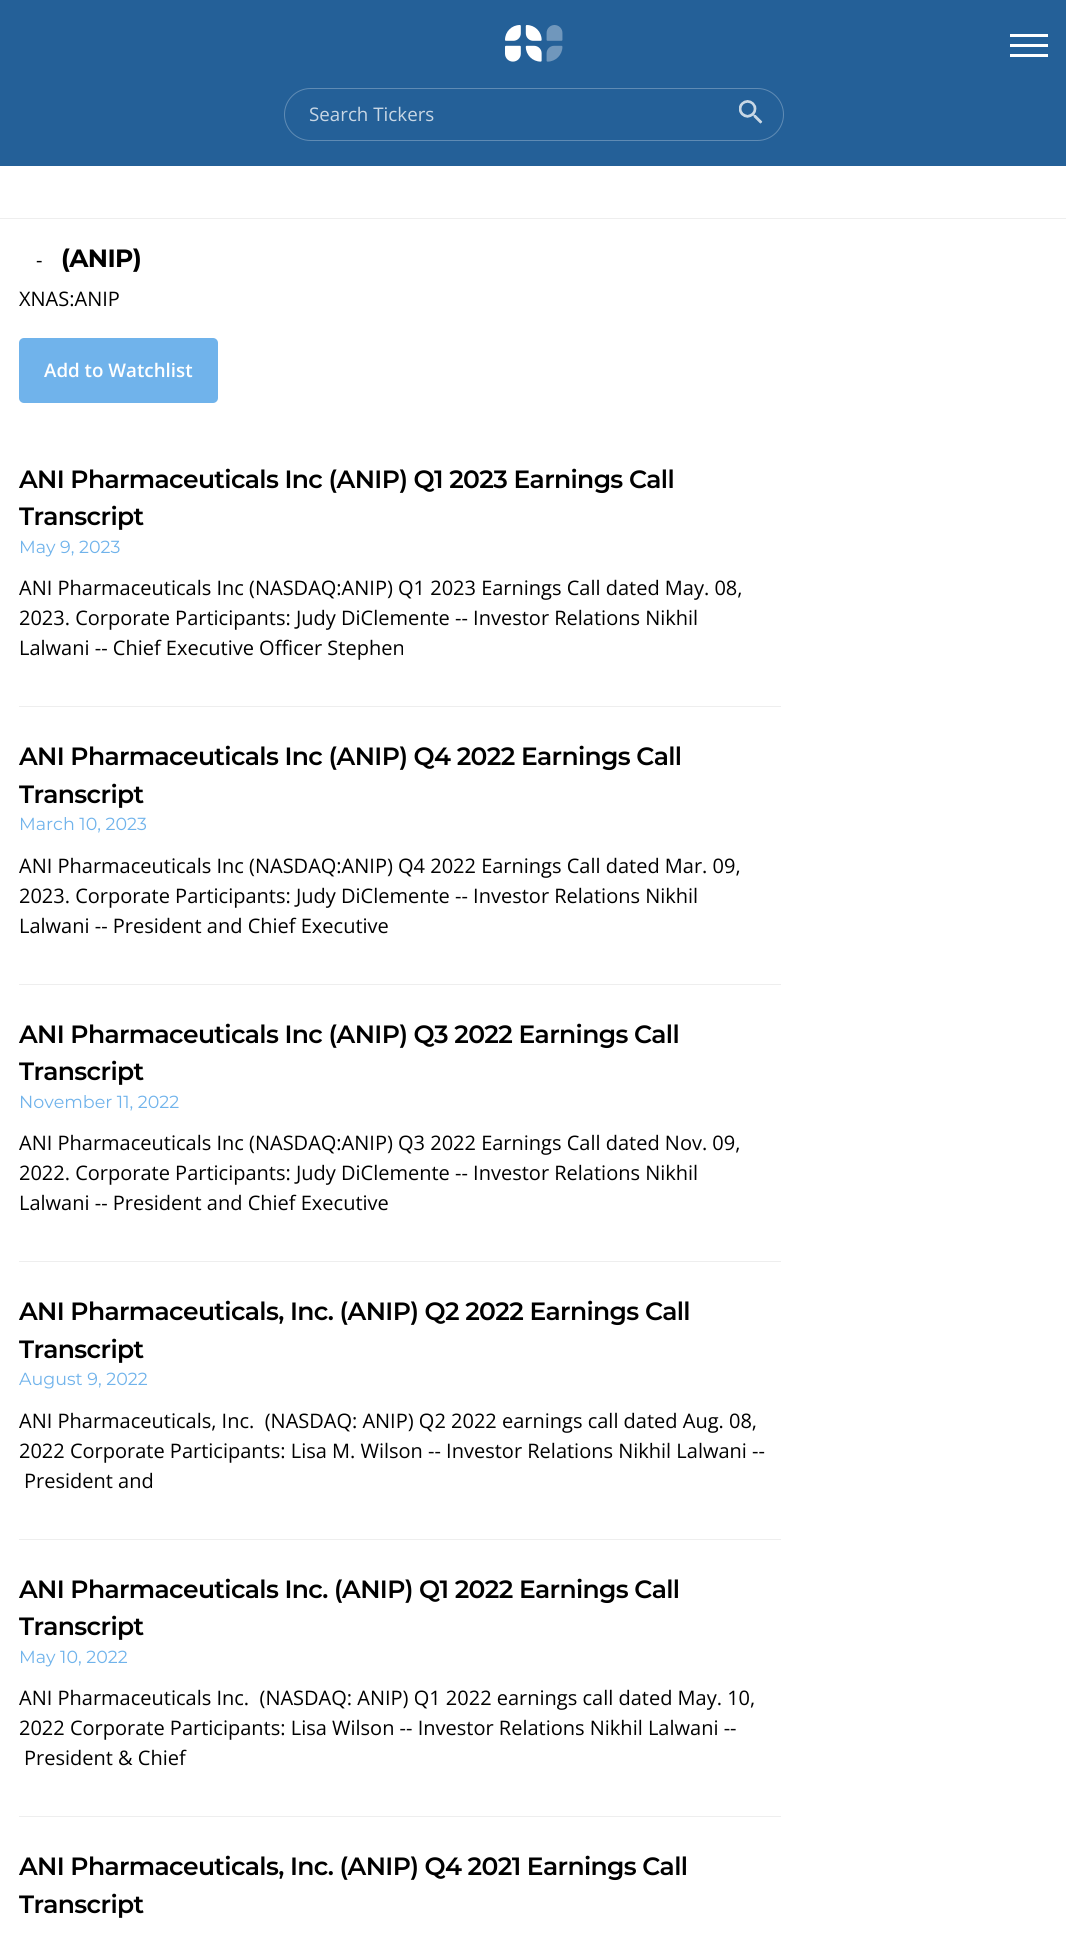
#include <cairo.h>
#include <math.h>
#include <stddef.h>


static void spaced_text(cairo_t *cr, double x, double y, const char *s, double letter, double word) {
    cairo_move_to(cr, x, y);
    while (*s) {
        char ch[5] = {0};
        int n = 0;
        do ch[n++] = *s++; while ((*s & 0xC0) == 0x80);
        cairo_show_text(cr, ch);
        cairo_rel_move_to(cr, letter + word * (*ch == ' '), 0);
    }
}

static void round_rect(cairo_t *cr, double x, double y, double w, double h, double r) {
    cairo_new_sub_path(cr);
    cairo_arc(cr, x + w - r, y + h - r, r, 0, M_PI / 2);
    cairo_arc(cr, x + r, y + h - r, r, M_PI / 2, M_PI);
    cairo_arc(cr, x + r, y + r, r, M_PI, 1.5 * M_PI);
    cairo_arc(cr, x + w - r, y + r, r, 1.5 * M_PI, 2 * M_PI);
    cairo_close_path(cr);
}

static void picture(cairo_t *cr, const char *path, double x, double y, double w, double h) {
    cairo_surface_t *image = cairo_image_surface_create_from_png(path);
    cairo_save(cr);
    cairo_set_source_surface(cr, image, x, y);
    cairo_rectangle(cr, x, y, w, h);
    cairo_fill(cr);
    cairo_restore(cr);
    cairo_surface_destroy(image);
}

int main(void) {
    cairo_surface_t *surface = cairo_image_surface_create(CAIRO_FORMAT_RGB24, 1066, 1936);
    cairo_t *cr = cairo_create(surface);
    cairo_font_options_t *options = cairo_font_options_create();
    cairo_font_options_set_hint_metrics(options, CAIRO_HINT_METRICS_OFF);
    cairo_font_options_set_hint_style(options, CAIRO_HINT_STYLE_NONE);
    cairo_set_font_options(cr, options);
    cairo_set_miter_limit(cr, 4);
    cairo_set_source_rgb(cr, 1, 1, 1);
    cairo_paint(cr);
    cairo_set_source_rgb(cr, 0.141, 0.376, 0.596);
    cairo_rectangle(cr, 0, 0, 1066, 166);
    cairo_fill(cr);
    picture(cr, "img1.png", 505, 25, 58, 37);
    cairo_set_source_rgb(cr, 1, 1, 1);
    cairo_rectangle(cr, 1010, 34, 38, 3);
    cairo_fill(cr);
    cairo_rectangle(cr, 1010, 44, 38, 3);
    cairo_fill(cr);
    cairo_rectangle(cr, 1010, 54, 38, 3);
    cairo_fill(cr);
    round_rect(cr, 284.5, 88.5, 499, 52, 26);
    cairo_set_source_rgb(cr, 0.373, 0.545, 0.706);
    cairo_set_line_width(cr, 1);
    cairo_stroke(cr);
    cairo_select_font_face(cr, "Open Sans", CAIRO_FONT_SLANT_NORMAL, CAIRO_FONT_WEIGHT_NORMAL);
    cairo_set_font_size(cr, 18.75);
    cairo_set_source_rgb(cr, 0.784, 0.843, 0.898);
    cairo_move_to(cr, 309, 121);
    cairo_show_text(cr, "Search Tickers");
    picture(cr, "img2.png", 739, 100, 24, 24);
    cairo_set_source_rgb(cr, 0.933, 0.933, 0.933);
    cairo_rectangle(cr, 0, 218, 1066, 1);
    cairo_fill(cr);
    cairo_set_font_size(cr, 20);
    cairo_set_source_rgb(cr, 0, 0, 0);
    cairo_move_to(cr, 36, 267);
    cairo_show_text(cr, "-");
    cairo_select_font_face(cr, "Montserrat", CAIRO_FONT_SLANT_NORMAL, CAIRO_FONT_WEIGHT_BOLD);
    cairo_set_font_size(cr, 25);
    spaced_text(cr, 61, 267, "(ANIP)", -0.62, 0);
    cairo_select_font_face(cr, "Open Sans", CAIRO_FONT_SLANT_NORMAL, CAIRO_FONT_WEIGHT_NORMAL);
    cairo_set_font_size(cr, 20);
    cairo_move_to(cr, 19, 306);
    cairo_show_text(cr, "XNAS:ANIP");
    cairo_set_source_rgb(cr, 0.439, 0.702, 0.918);
    round_rect(cr, 19, 338, 199, 65, 5);
    cairo_fill(cr);
    cairo_select_font_face(cr, "Open Sans SemiBold", CAIRO_FONT_SLANT_NORMAL, CAIRO_FONT_WEIGHT_NORMAL);
    cairo_set_font_size(cr, 18.75);
    cairo_set_source_rgb(cr, 1, 1, 1);
    cairo_move_to(cr, 44, 377);
    cairo_show_text(cr, "Add to Watchlist");
    cairo_set_source_rgb(cr, 0.933, 0.933, 0.933);
    cairo_rectangle(cr, 19, 706, 762, 1);
    cairo_fill(cr);
    cairo_select_font_face(cr, "Montserrat SemiBold", CAIRO_FONT_SLANT_NORMAL, CAIRO_FONT_WEIGHT_NORMAL);
    cairo_set_font_size(cr, 25);
    cairo_set_source_rgb(cr, 0, 0, 0);
    spaced_text(cr, 19, 488, "ANI Pharmaceuticals Inc (ANIP) Q1 2023 Earnings Call", -0.62, 0);
    spaced_text(cr, 19, 525, "Transcript", -0.62, 0);
    cairo_select_font_face(cr, "Montserrat", CAIRO_FONT_SLANT_NORMAL, CAIRO_FONT_WEIGHT_NORMAL);
    cairo_set_font_size(cr, 17.5);
    cairo_set_source_rgb(cr, 0.439, 0.702, 0.918);
    cairo_move_to(cr, 19, 553);
    cairo_show_text(cr, "May 9, 2023");
    cairo_select_font_face(cr, "Open Sans", CAIRO_FONT_SLANT_NORMAL, CAIRO_FONT_WEIGHT_NORMAL);
    cairo_set_font_size(cr, 20);
    cairo_set_source_rgb(cr, 0, 0, 0);
    cairo_move_to(cr, 19, 595);
    cairo_show_text(cr, "ANI Pharmaceuticals Inc (NASDAQ:ANIP) Q1 2023 Earnings Call dated May. 08,");
    cairo_move_to(cr, 19, 625);
    cairo_show_text(cr, "2023. Corporate Participants: Judy DiClemente -- Investor Relations Nikhil");
    cairo_move_to(cr, 19, 655);
    cairo_show_text(cr, "Lalwani -- Chief Executive Officer Stephen");
    cairo_set_source_rgb(cr, 0.933, 0.933, 0.933);
    cairo_rectangle(cr, 19, 984, 762, 1);
    cairo_fill(cr);
    cairo_select_font_face(cr, "Montserrat SemiBold", CAIRO_FONT_SLANT_NORMAL, CAIRO_FONT_WEIGHT_NORMAL);
    cairo_set_font_size(cr, 25);
    cairo_set_source_rgb(cr, 0, 0, 0);
    spaced_text(cr, 19, 765, "ANI Pharmaceuticals Inc (ANIP) Q4 2022 Earnings Call", -0.62, 0);
    spaced_text(cr, 19, 803, "Transcript", -0.62, 0);
    cairo_select_font_face(cr, "Montserrat", CAIRO_FONT_SLANT_NORMAL, CAIRO_FONT_WEIGHT_NORMAL);
    cairo_set_font_size(cr, 17.5);
    cairo_set_source_rgb(cr, 0.439, 0.702, 0.918);
    cairo_move_to(cr, 19, 830);
    cairo_show_text(cr, "March 10, 2023");
    cairo_select_font_face(cr, "Open Sans", CAIRO_FONT_SLANT_NORMAL, CAIRO_FONT_WEIGHT_NORMAL);
    cairo_set_font_size(cr, 20);
    cairo_set_source_rgb(cr, 0, 0, 0);
    cairo_move_to(cr, 19, 873);
    cairo_show_text(cr, "ANI Pharmaceuticals Inc (NASDAQ:ANIP) Q4 2022 Earnings Call dated Mar. 09,");
    cairo_move_to(cr, 19, 903);
    cairo_show_text(cr, "2023. Corporate Participants: Judy DiClemente -- Investor Relations Nikhil");
    cairo_move_to(cr, 19, 933);
    cairo_show_text(cr, "Lalwani -- President and Chief Executive");
    cairo_set_source_rgb(cr, 0.933, 0.933, 0.933);
    cairo_rectangle(cr, 19, 1261, 762, 1);
    cairo_fill(cr);
    cairo_select_font_face(cr, "Montserrat SemiBold", CAIRO_FONT_SLANT_NORMAL, CAIRO_FONT_WEIGHT_NORMAL);
    cairo_set_font_size(cr, 25);
    cairo_set_source_rgb(cr, 0, 0, 0);
    spaced_text(cr, 19, 1043, "ANI Pharmaceuticals Inc (ANIP) Q3 2022 Earnings Call", -0.62, 0);
    spaced_text(cr, 19, 1080, "Transcript", -0.62, 0);
    cairo_select_font_face(cr, "Montserrat", CAIRO_FONT_SLANT_NORMAL, CAIRO_FONT_WEIGHT_NORMAL);
    cairo_set_font_size(cr, 17.5);
    cairo_set_source_rgb(cr, 0.439, 0.702, 0.918);
    cairo_move_to(cr, 19, 1108);
    cairo_show_text(cr, "November 11, 2022");
    cairo_select_font_face(cr, "Open Sans", CAIRO_FONT_SLANT_NORMAL, CAIRO_FONT_WEIGHT_NORMAL);
    cairo_set_font_size(cr, 20);
    cairo_set_source_rgb(cr, 0, 0, 0);
    cairo_move_to(cr, 19, 1150);
    cairo_show_text(cr, "ANI Pharmaceuticals Inc (NASDAQ:ANIP) Q3 2022 Earnings Call dated Nov. 09,");
    cairo_move_to(cr, 19, 1180);
    cairo_show_text(cr, "2022. Corporate Participants: Judy DiClemente -- Investor Relations Nikhil");
    cairo_move_to(cr, 19, 1210);
    cairo_show_text(cr, "Lalwani -- President and Chief Executive");
    cairo_set_source_rgb(cr, 0.933, 0.933, 0.933);
    cairo_rectangle(cr, 19, 1539, 762, 1);
    cairo_fill(cr);
    cairo_select_font_face(cr, "Montserrat SemiBold", CAIRO_FONT_SLANT_NORMAL, CAIRO_FONT_WEIGHT_NORMAL);
    cairo_set_font_size(cr, 25);
    cairo_set_source_rgb(cr, 0, 0, 0);
    spaced_text(cr, 19, 1320, "ANI Pharmaceuticals, Inc. (ANIP) Q2 2022 Earnings Call", -0.62, 0);
    spaced_text(cr, 19, 1358, "Transcript", -0.62, 0);
    cairo_select_font_face(cr, "Montserrat", CAIRO_FONT_SLANT_NORMAL, CAIRO_FONT_WEIGHT_NORMAL);
    cairo_set_font_size(cr, 17.5);
    cairo_set_source_rgb(cr, 0.439, 0.702, 0.918);
    cairo_move_to(cr, 19, 1385);
    cairo_show_text(cr, "August 9, 2022");
    cairo_select_font_face(cr, "Open Sans", CAIRO_FONT_SLANT_NORMAL, CAIRO_FONT_WEIGHT_NORMAL);
    cairo_set_font_size(cr, 20);
    cairo_set_source_rgb(cr, 0, 0, 0);
    cairo_move_to(cr, 19, 1428);
    cairo_show_text(cr, "ANI Pharmaceuticals, Inc.  (NASDAQ: ANIP) Q2 2022 earnings call dated Aug. 08,");
    cairo_move_to(cr, 19, 1458);
    cairo_show_text(cr, "2022 Corporate Participants: Lisa M. Wilson -- Investor Relations Nikhil Lalwani --");
    cairo_move_to(cr, 24, 1488);
    cairo_show_text(cr, "President and");
    cairo_set_source_rgb(cr, 0.933, 0.933, 0.933);
    cairo_rectangle(cr, 19, 1816, 762, 1);
    cairo_fill(cr);
    cairo_select_font_face(cr, "Montserrat SemiBold", CAIRO_FONT_SLANT_NORMAL, CAIRO_FONT_WEIGHT_NORMAL);
    cairo_set_font_size(cr, 25);
    cairo_set_source_rgb(cr, 0, 0, 0);
    spaced_text(cr, 19, 1598, "ANI Pharmaceuticals Inc. (ANIP) Q1 2022 Earnings Call", -0.62, 0);
    spaced_text(cr, 19, 1635, "Transcript", -0.62, 0);
    cairo_select_font_face(cr, "Montserrat", CAIRO_FONT_SLANT_NORMAL, CAIRO_FONT_WEIGHT_NORMAL);
    cairo_set_font_size(cr, 17.5);
    cairo_set_source_rgb(cr, 0.439, 0.702, 0.918);
    cairo_move_to(cr, 19, 1663);
    cairo_show_text(cr, "May 10, 2022");
    cairo_select_font_face(cr, "Open Sans", CAIRO_FONT_SLANT_NORMAL, CAIRO_FONT_WEIGHT_NORMAL);
    cairo_set_font_size(cr, 20);
    cairo_set_source_rgb(cr, 0, 0, 0);
    cairo_move_to(cr, 19, 1705);
    cairo_show_text(cr, "ANI Pharmaceuticals Inc.  (NASDAQ: ANIP) Q1 2022 earnings call dated May. 10,");
    cairo_move_to(cr, 19, 1735);
    cairo_show_text(cr, "2022 Corporate Participants: Lisa Wilson -- Investor Relations Nikhil Lalwani --");
    cairo_move_to(cr, 24, 1765);
    cairo_show_text(cr, "President & Chief");
    cairo_select_font_face(cr, "Montserrat SemiBold", CAIRO_FONT_SLANT_NORMAL, CAIRO_FONT_WEIGHT_NORMAL);
    cairo_set_font_size(cr, 25);
    spaced_text(cr, 19, 1875, "ANI Pharmaceuticals, Inc. (ANIP) Q4 2021 Earnings Call", -0.62, 0);
    spaced_text(cr, 19, 1913, "Transcript", -0.62, 0);
    cairo_surface_write_to_png(surface, "page.png");
    cairo_font_options_destroy(options);
    cairo_destroy(cr);
    cairo_surface_destroy(surface);
    return 0;
}
